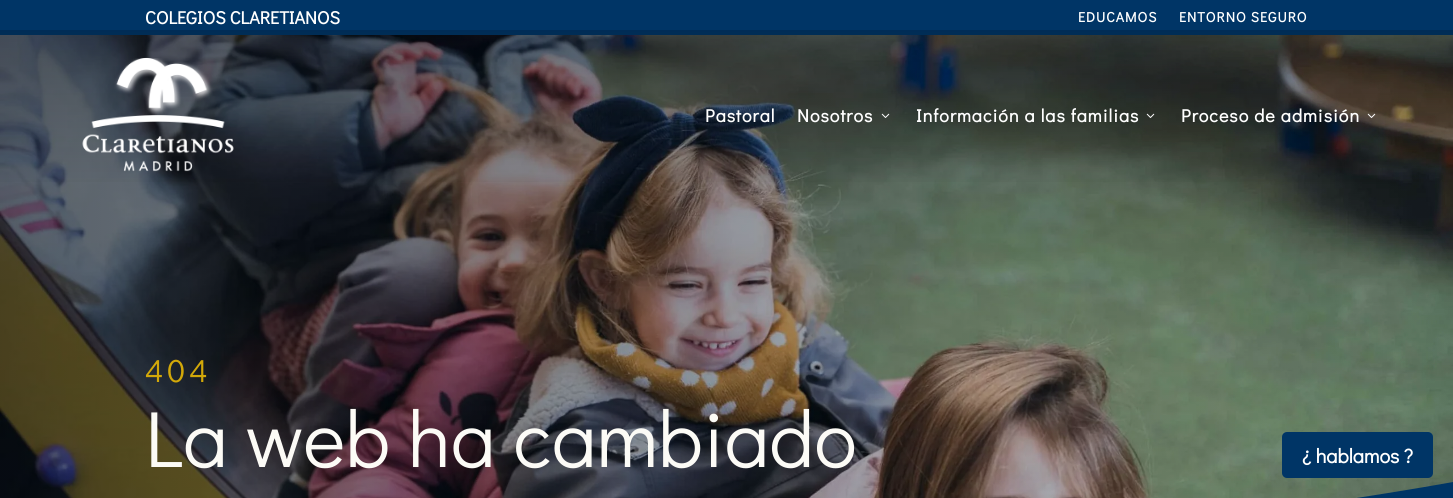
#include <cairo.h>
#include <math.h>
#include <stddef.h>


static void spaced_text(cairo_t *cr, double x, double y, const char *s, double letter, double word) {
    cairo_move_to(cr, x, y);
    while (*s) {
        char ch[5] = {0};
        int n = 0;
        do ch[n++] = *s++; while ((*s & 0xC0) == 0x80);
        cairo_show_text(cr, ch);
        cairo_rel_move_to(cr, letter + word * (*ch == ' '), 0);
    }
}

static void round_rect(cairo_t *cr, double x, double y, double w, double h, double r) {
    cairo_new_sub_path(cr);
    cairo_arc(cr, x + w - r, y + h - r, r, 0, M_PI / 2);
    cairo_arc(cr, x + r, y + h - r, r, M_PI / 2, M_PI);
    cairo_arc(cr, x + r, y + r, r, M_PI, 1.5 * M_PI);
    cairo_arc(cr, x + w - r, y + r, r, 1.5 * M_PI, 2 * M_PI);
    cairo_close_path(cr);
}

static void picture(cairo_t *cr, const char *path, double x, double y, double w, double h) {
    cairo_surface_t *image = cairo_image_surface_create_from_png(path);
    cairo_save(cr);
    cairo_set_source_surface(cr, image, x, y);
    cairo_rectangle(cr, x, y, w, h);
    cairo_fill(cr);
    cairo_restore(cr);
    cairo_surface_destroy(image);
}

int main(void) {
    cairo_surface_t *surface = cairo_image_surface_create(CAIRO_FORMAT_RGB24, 1453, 498);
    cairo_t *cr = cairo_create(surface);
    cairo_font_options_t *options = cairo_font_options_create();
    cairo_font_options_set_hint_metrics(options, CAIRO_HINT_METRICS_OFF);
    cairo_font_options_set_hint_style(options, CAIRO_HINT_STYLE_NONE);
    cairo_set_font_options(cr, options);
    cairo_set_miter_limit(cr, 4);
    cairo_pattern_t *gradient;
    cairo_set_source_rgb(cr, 1, 1, 1);
    cairo_paint(cr);
    cairo_set_source_rgb(cr, 0, 0.208, 0.4);
    cairo_rectangle(cr, 0, 0, 1453, 35);
    cairo_fill(cr);
    cairo_select_font_face(cr, "Didact Gothic", CAIRO_FONT_SLANT_NORMAL, CAIRO_FONT_WEIGHT_BOLD);
    cairo_set_font_size(cr, 18);
    cairo_set_source_rgb(cr, 1, 1, 1);
    cairo_move_to(cr, 145, 24);
    cairo_show_text(cr, "COLEGIOS CLARETIANOS");
    cairo_set_font_size(cr, 14);
    spaced_text(cr, 1078, 22, "EDUCAMOS", 1, 0);
    spaced_text(cr, 1179, 22, "ENTORNO SEGURO", 1, 0);
    picture(cr, "img5.png", 0, 35, 1453, 463);
    gradient = cairo_pattern_create_linear(727, 30, 727, 200);
    cairo_pattern_add_color_stop_rgba(gradient, 0, 0, 0.031, 0.078, 0.2);
    cairo_pattern_add_color_stop_rgba(gradient, 1, 0, 0.031, 0.078, 0);
    cairo_set_source(cr, gradient);
    cairo_pattern_destroy(gradient);
    cairo_rectangle(cr, 0, 30, 1453, 152);
    cairo_fill(cr);
    picture(cr, "img1.png", 82, 57, 152, 115);
    cairo_set_font_size(cr, 18);
    cairo_set_source_rgb(cr, 1, 1, 1);
    spaced_text(cr, 705, 122, "Pastoral", 1, 0);
    spaced_text(cr, 797, 122, "Nosotros", 1, 0);
    picture(cr, "img2.png", 881, 113, 9, 5);
    spaced_text(cr, 916, 122, "Información a las familias", 1, 0);
    picture(cr, "img3.png", 1146, 113, 9, 5);
    spaced_text(cr, 1181, 122, "Proceso de admisión", 1, 0);
    picture(cr, "img4.png", 1367, 113, 9, 5);
    cairo_select_font_face(cr, "Didact Gothic", CAIRO_FONT_SLANT_NORMAL, CAIRO_FONT_WEIGHT_NORMAL);
    cairo_set_font_size(cr, 32);
    cairo_set_source_rgb(cr, 0.824, 0.659, 0.039);
    spaced_text(cr, 145, 382, "404", 4, 0);
    cairo_set_font_size(cr, 80);
    cairo_set_source_rgb(cr, 0.988, 0.984, 0.961);
    cairo_move_to(cr, 145, 467);
    cairo_show_text(cr, "La web ha cambiado");
    cairo_set_source_rgb(cr, 0, 0.208, 0.4);
    cairo_new_path(cr);
    cairo_move_to(cr, 1453, 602);
    cairo_line_to(cr, 0, 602);
    cairo_curve_to(cr, 802, 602, 1453, 482, 1453, 482);
    cairo_close_path(cr);
    cairo_fill(cr);
    round_rect(cr, 1282, 432, 151, 46, 5);
    cairo_fill(cr);
    cairo_select_font_face(cr, "Didact Gothic", CAIRO_FONT_SLANT_NORMAL, CAIRO_FONT_WEIGHT_BOLD);
    cairo_set_font_size(cr, 20);
    cairo_set_source_rgb(cr, 1, 1, 1);
    cairo_move_to(cr, 1302, 463);
    cairo_show_text(cr, "¿ hablamos ?");
    cairo_surface_write_to_png(surface, "page.png");
    cairo_font_options_destroy(options);
    cairo_destroy(cr);
    cairo_surface_destroy(surface);
    return 0;
}
